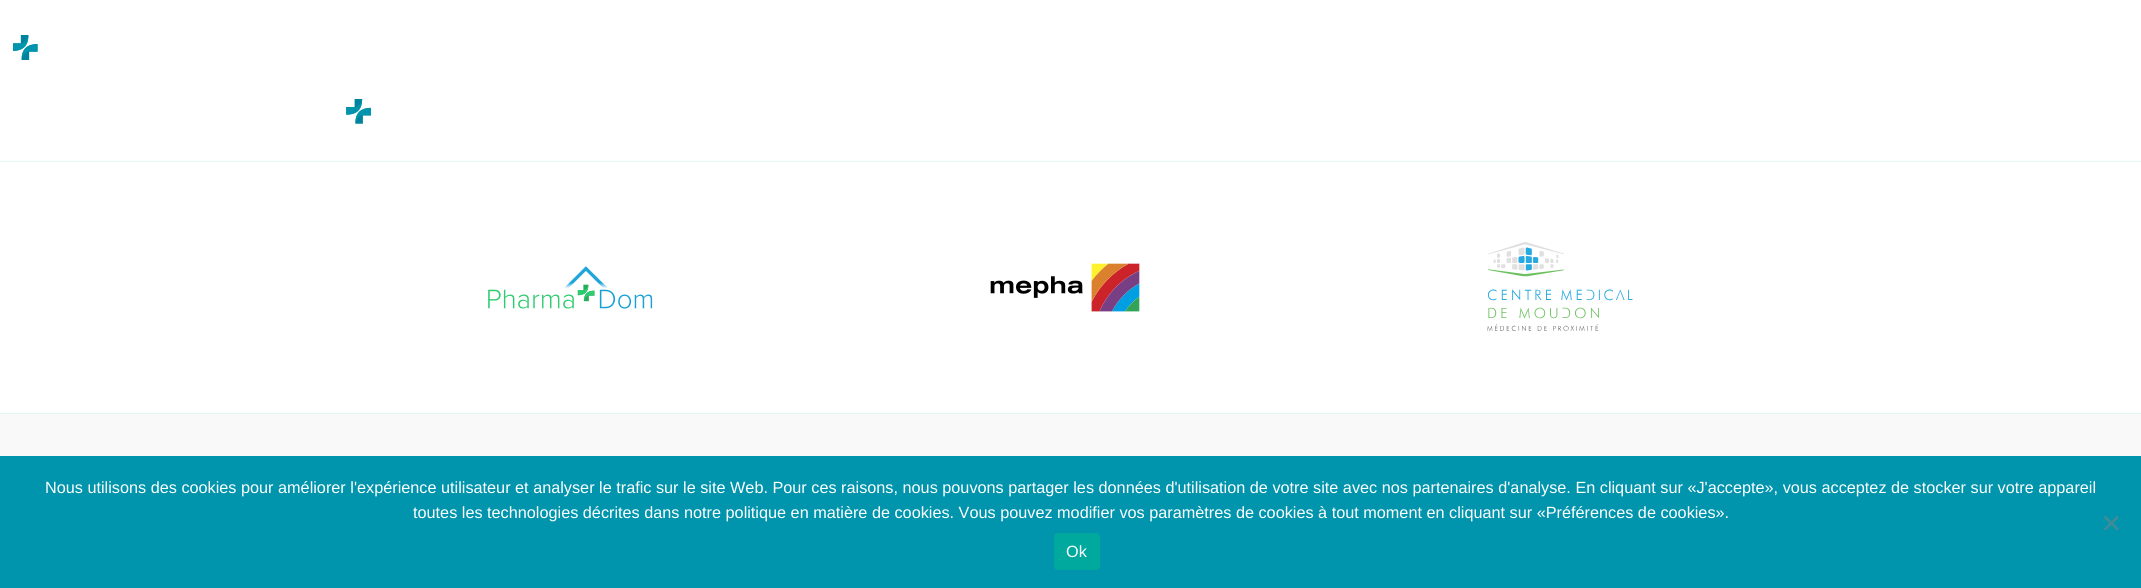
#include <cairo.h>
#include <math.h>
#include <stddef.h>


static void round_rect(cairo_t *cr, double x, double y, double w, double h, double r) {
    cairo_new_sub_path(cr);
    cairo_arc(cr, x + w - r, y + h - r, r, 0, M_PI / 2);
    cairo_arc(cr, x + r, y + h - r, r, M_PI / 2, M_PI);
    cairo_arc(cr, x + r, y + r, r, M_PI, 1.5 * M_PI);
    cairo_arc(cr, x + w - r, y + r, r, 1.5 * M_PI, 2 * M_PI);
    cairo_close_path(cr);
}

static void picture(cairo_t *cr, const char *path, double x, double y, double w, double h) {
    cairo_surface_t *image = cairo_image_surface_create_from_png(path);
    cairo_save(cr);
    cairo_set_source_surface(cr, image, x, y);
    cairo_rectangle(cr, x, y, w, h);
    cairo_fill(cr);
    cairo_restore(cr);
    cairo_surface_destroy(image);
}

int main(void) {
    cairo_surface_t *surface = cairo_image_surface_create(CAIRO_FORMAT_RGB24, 2141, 588);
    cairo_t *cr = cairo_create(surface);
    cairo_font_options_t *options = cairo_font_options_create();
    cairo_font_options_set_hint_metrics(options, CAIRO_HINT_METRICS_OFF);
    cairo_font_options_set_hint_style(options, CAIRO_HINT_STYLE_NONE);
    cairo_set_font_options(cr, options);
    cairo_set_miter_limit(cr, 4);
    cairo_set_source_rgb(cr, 1, 1, 1);
    cairo_paint(cr);
    picture(cr, "img1.png", 13, 35, 25, 25);
    picture(cr, "img2.png", 346, 99, 25, 25);
    cairo_set_source_rgb(cr, 0.894, 0.976, 0.929);
    cairo_rectangle(cr, 0, 161, 2141, 1);
    cairo_fill(cr);
    cairo_rectangle(cr, 0, 413, 2141, 1);
    cairo_fill(cr);
    picture(cr, "img3.png", 488, 266, 165, 43);
    picture(cr, "img4.png", 990, 263, 150, 49);
    picture(cr, "img5.png", 1487, 242, 146, 89);
    cairo_set_source_rgb(cr, 0.973, 0.973, 0.973);
    cairo_rectangle(cr, 0, 414, 2141, 42);
    cairo_fill(cr);
    cairo_set_source_rgb(cr, 0, 0.584, 0.678);
    cairo_rectangle(cr, 0, 456, 2141, 132);
    cairo_fill(cr);
    cairo_select_font_face(cr, "Liberation Sans", CAIRO_FONT_SLANT_NORMAL, CAIRO_FONT_WEIGHT_NORMAL);
    cairo_set_font_size(cr, 16.25);
    cairo_set_source_rgb(cr, 1, 1, 1);
    cairo_move_to(cr, 45, 493);
    cairo_show_text(cr, "Nous utilisons des cookies pour améliorer l'expérience utilisateur et analyser le trafic sur le site Web. Pour ces raisons, nous pouvons partager les données d'utilisation de votre site avec nos partenaires d'analyse. En cliquant sur «J'accepte», vous acceptez de stocker sur votre appareil");
    cairo_move_to(cr, 413, 518);
    cairo_show_text(cr, "toutes les technologies décrites dans notre politique en matière de cookies. Vous pouvez modifier vos paramètres de cookies à tout moment en cliquant sur «Préférences de cookies».");
    cairo_set_source_rgb(cr, 0.251, 0.545, 0.592);
    cairo_new_path(cr);
    cairo_move_to(cr, 2117, 515.5);
    cairo_line_to(cr, 2119, 517.5);
    cairo_line_to(cr, 2105.5, 530.5);
    cairo_line_to(cr, 2103.5, 529);
    cairo_close_path(cr);
    cairo_fill(cr);
    cairo_new_path(cr);
    cairo_move_to(cr, 2103.5, 517.5);
    cairo_line_to(cr, 2105.5, 515.5);
    cairo_line_to(cr, 2119, 529);
    cairo_line_to(cr, 2117, 530.5);
    cairo_close_path(cr);
    cairo_fill(cr);
    cairo_set_source_rgb(cr, 0, 0.663, 0.616);
    round_rect(cr, 1054, 533, 46, 37, 4);
    cairo_fill(cr);
    cairo_set_source_rgb(cr, 1, 1, 1);
    cairo_move_to(cr, 1066, 557);
    cairo_show_text(cr, "Ok");
    cairo_surface_write_to_png(surface, "page.png");
    cairo_font_options_destroy(options);
    cairo_destroy(cr);
    cairo_surface_destroy(surface);
    return 0;
}
